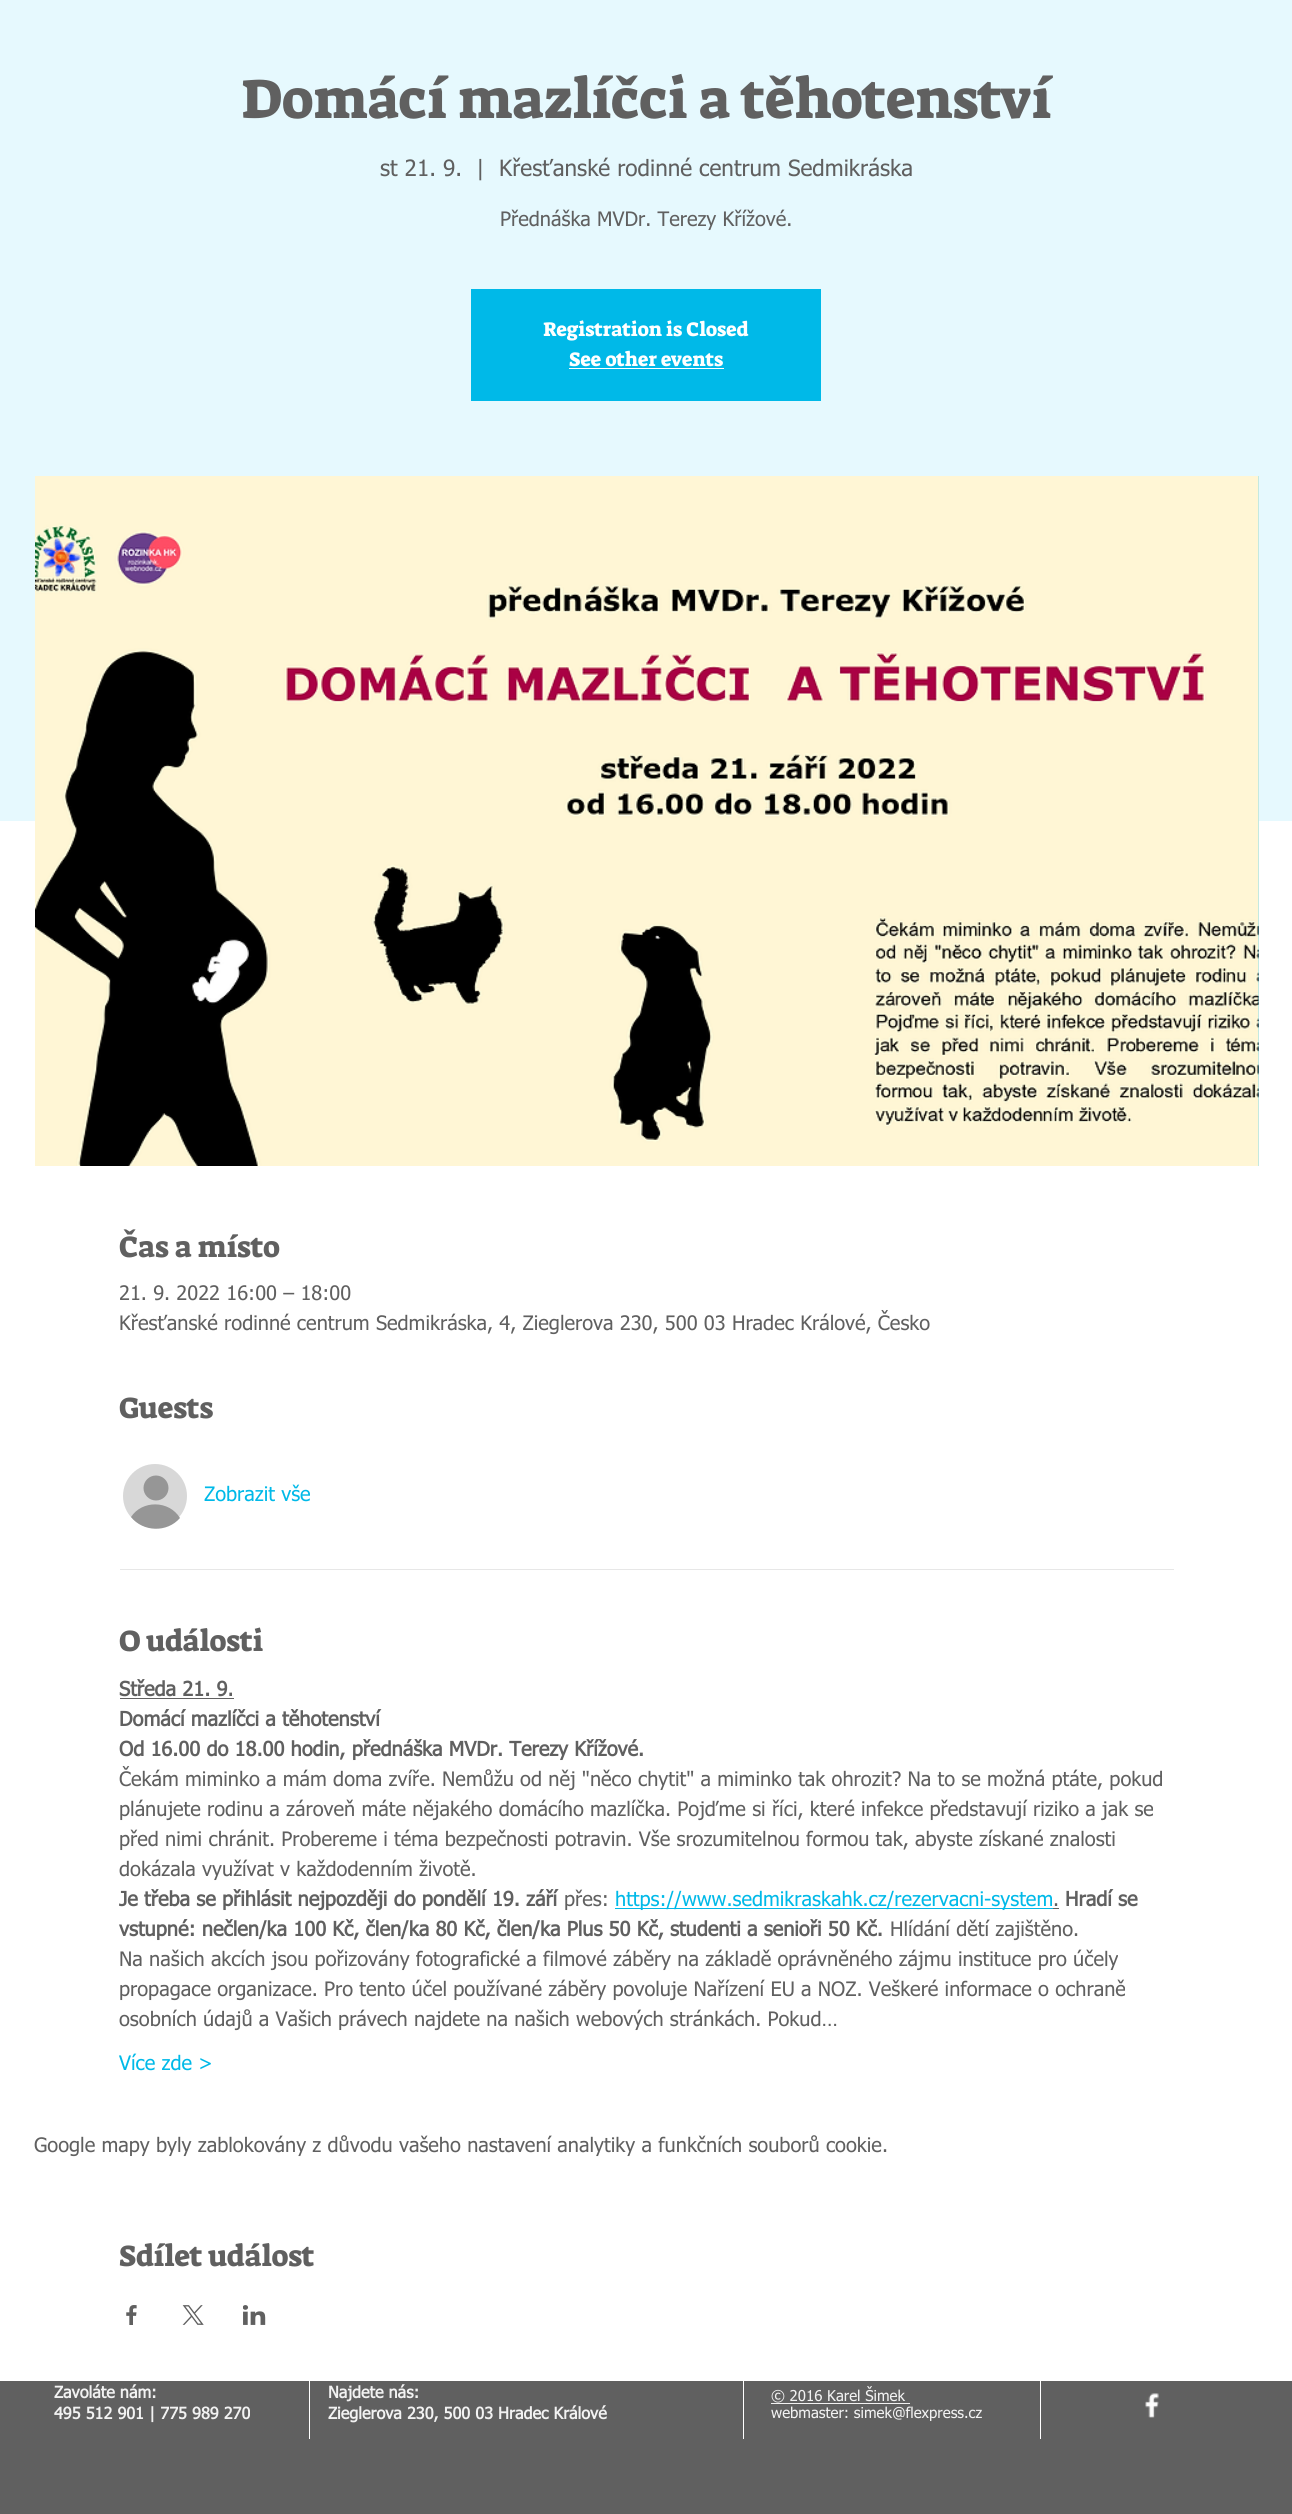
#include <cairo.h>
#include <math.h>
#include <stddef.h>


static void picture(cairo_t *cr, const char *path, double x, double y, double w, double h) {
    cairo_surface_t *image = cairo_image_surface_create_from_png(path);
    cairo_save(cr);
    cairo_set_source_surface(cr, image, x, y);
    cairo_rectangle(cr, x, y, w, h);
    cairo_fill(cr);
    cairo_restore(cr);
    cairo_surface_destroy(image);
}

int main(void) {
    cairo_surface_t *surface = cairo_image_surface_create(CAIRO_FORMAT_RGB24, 1292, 2514);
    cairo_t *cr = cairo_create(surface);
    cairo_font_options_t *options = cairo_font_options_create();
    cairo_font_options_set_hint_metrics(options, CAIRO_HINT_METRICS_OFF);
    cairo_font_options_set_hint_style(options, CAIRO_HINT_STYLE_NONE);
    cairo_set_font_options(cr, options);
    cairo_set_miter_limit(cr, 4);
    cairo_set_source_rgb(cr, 1, 1, 1);
    cairo_paint(cr);
    cairo_set_source_rgb(cr, 0.902, 0.976, 0.996);
    cairo_rectangle(cr, 0, 0, 1292, 821);
    cairo_fill(cr);
    cairo_select_font_face(cr, "Suez One", CAIRO_FONT_SLANT_NORMAL, CAIRO_FONT_WEIGHT_NORMAL);
    cairo_set_font_size(cr, 56.25);
    cairo_set_source_rgb(cr, 0.376, 0.376, 0.376);
    cairo_move_to(cr, 241, 118);
    cairo_show_text(cr, "Domácí mazlíčci a těhotenství");
    cairo_select_font_face(cr, "tahoma", CAIRO_FONT_SLANT_NORMAL, CAIRO_FONT_WEIGHT_NORMAL);
    cairo_set_font_size(cr, 22.5);
    cairo_move_to(cr, 380, 176);
    cairo_show_text(cr, "st 21. 9.");
    cairo_move_to(cr, 476, 176);
    cairo_show_text(cr, "|");
    cairo_move_to(cr, 499, 176);
    cairo_show_text(cr, "Křesťanské rodinné centrum Sedmikráska");
    cairo_set_font_size(cr, 20);
    cairo_move_to(cr, 500, 226);
    cairo_show_text(cr, "Přednáška MVDr. Terezy Křížové.");
    cairo_set_source_rgb(cr, 0, 0.725, 0.91);
    cairo_rectangle(cr, 471, 289, 350, 112);
    cairo_fill(cr);
    cairo_select_font_face(cr, "Suez One", CAIRO_FONT_SLANT_NORMAL, CAIRO_FONT_WEIGHT_NORMAL);
    cairo_set_source_rgb(cr, 1, 1, 1);
    cairo_move_to(cr, 543, 336);
    cairo_show_text(cr, "Registration is Closed");
    cairo_move_to(cr, 569, 366);
    cairo_show_text(cr, "See other events");
    cairo_rectangle(cr, 569, 368, 155, 1);
    cairo_fill(cr);
    cairo_set_source_rgb(cr, 0.467, 0.843, 0.937);
    cairo_rectangle(cr, 1258, 476, 1, 690);
    cairo_fill(cr);
    picture(cr, "img1.png", 35, 476, 1224, 690);
    cairo_set_font_size(cr, 30);
    cairo_set_source_rgb(cr, 0.376, 0.376, 0.376);
    cairo_move_to(cr, 119, 1257);
    cairo_show_text(cr, "Čas a místo");
    cairo_select_font_face(cr, "tahoma", CAIRO_FONT_SLANT_NORMAL, CAIRO_FONT_WEIGHT_NORMAL);
    cairo_set_font_size(cr, 20);
    cairo_move_to(cr, 119, 1300);
    cairo_show_text(cr, "21. 9. 2022 16:00 – 18:00");
    cairo_move_to(cr, 119, 1330);
    cairo_show_text(cr, "Křesťanské rodinné centrum Sedmikráska, 4, Zieglerova 230, 500 03 Hradec Králové, Česko");
    cairo_select_font_face(cr, "Suez One", CAIRO_FONT_SLANT_NORMAL, CAIRO_FONT_WEIGHT_NORMAL);
    cairo_set_font_size(cr, 30);
    cairo_move_to(cr, 119, 1418);
    cairo_show_text(cr, "Guests");
    cairo_set_source_rgb(cr, 0.847, 0.847, 0.847);
    cairo_new_path(cr);
    cairo_arc(cr, 155, 1496, 33.5, 0, 2 * M_PI);
    cairo_fill_preserve(cr);
    cairo_set_source_rgb(cr, 1, 1, 1);
    cairo_set_line_width(cr, 3);
    cairo_stroke(cr);
    cairo_set_source_rgb(cr, 0.588, 0.588, 0.588);
    cairo_arc(cr, 156, 1488, 12.5, 0, 2 * M_PI);
    cairo_fill(cr);
    cairo_new_path(cr);
    cairo_move_to(cr, 180, 1518);
    cairo_curve_to(cr, 167, 1533, 143, 1532, 131, 1517);
    cairo_curve_to(cr, 142, 1500, 169, 1500, 180, 1518);
    cairo_close_path(cr);
    cairo_fill(cr);
    cairo_select_font_face(cr, "tahoma", CAIRO_FONT_SLANT_NORMAL, CAIRO_FONT_WEIGHT_NORMAL);
    cairo_set_font_size(cr, 20);
    cairo_set_source_rgb(cr, 0, 0.725, 0.91);
    cairo_move_to(cr, 204, 1501);
    cairo_show_text(cr, "Zobrazit vše");
    cairo_set_source_rgb(cr, 0.906, 0.906, 0.906);
    cairo_rectangle(cr, 120, 1569, 1054, 1);
    cairo_fill(cr);
    cairo_select_font_face(cr, "Suez One", CAIRO_FONT_SLANT_NORMAL, CAIRO_FONT_WEIGHT_NORMAL);
    cairo_set_font_size(cr, 30);
    cairo_set_source_rgb(cr, 0.376, 0.376, 0.376);
    cairo_move_to(cr, 119, 1651);
    cairo_show_text(cr, "O události");
    cairo_select_font_face(cr, "tahoma", CAIRO_FONT_SLANT_NORMAL, CAIRO_FONT_WEIGHT_BOLD);
    cairo_set_font_size(cr, 20);
    cairo_move_to(cr, 119, 1696);
    cairo_show_text(cr, "Středa 21. 9.");
    cairo_rectangle(cr, 120, 1698, 114, 1);
    cairo_fill(cr);
    cairo_move_to(cr, 119, 1726);
    cairo_show_text(cr, "Domácí mazlíčci a těhotenství");
    cairo_move_to(cr, 119, 1756);
    cairo_show_text(cr, "Od 16.00 do 18.00 hodin, přednáška MVDr. Terezy Křížové.");
    cairo_select_font_face(cr, "tahoma", CAIRO_FONT_SLANT_NORMAL, CAIRO_FONT_WEIGHT_NORMAL);
    cairo_move_to(cr, 119, 1786);
    cairo_show_text(cr, "Čekám miminko a mám doma zvíře. Nemůžu od něj \"něco chytit\" a miminko tak ohrozit? Na to se možná ptáte, pokud");
    cairo_move_to(cr, 119, 1816);
    cairo_show_text(cr, "plánujete rodinu a zároveň máte nějakého domácího mazlíčka. Pojďme si říci, které infekce představují riziko a jak se");
    cairo_move_to(cr, 119, 1846);
    cairo_show_text(cr, "před nimi chránit. Probereme i téma bezpečnosti potravin. Vše srozumitelnou formou tak, abyste získané znalosti");
    cairo_move_to(cr, 119, 1876);
    cairo_show_text(cr, "dokázala využívat v každodenním životě.");
    cairo_select_font_face(cr, "tahoma", CAIRO_FONT_SLANT_NORMAL, CAIRO_FONT_WEIGHT_BOLD);
    cairo_move_to(cr, 119, 1906);
    cairo_show_text(cr, "Je třeba se přihlásit nejpozději do pondělí 19. září");
    cairo_select_font_face(cr, "tahoma", CAIRO_FONT_SLANT_NORMAL, CAIRO_FONT_WEIGHT_NORMAL);
    cairo_move_to(cr, 564, 1906);
    cairo_show_text(cr, "přes:");
    cairo_set_source_rgb(cr, 0, 0.725, 0.91);
    cairo_rectangle(cr, 615, 1908, 438, 1);
    cairo_fill(cr);
    cairo_move_to(cr, 615, 1906);
    cairo_show_text(cr, "https://www.sedmikraskahk.cz/rezervacni-system");
    cairo_set_source_rgb(cr, 0.376, 0.376, 0.376);
    cairo_move_to(cr, 1053, 1906);
    cairo_show_text(cr, ".");
    cairo_rectangle(cr, 1053, 1908, 6, 1);
    cairo_fill(cr);
    cairo_select_font_face(cr, "tahoma", CAIRO_FONT_SLANT_NORMAL, CAIRO_FONT_WEIGHT_BOLD);
    cairo_move_to(cr, 1065, 1906);
    cairo_show_text(cr, "Hradí se");
    cairo_move_to(cr, 119, 1936);
    cairo_show_text(cr, "vstupné: nečlen/ka 100 Kč, člen/ka 80 Kč, člen/ka Plus 50 Kč, studenti a senioři 50 Kč.");
    cairo_select_font_face(cr, "tahoma", CAIRO_FONT_SLANT_NORMAL, CAIRO_FONT_WEIGHT_NORMAL);
    cairo_move_to(cr, 890, 1936);
    cairo_show_text(cr, "Hlídání dětí zajištěno.");
    cairo_move_to(cr, 119, 1966);
    cairo_show_text(cr, "Na našich akcích jsou pořizovány fotografické a filmové záběry na základě oprávněného zájmu instituce pro účely");
    cairo_move_to(cr, 119, 1996);
    cairo_show_text(cr, "propagace organizace. Pro tento účel používané záběry povoluje Nařízení EU a NOZ. Veškeré informace o ochraně");
    cairo_move_to(cr, 119, 2026);
    cairo_show_text(cr, "osobních údajů a Vašich právech najdete na našich webových stránkách. Pokud…");
    cairo_set_source_rgb(cr, 0, 0.725, 0.91);
    cairo_move_to(cr, 119, 2070);
    cairo_show_text(cr, "Více zde >");
    cairo_set_source_rgb(cr, 0.376, 0.376, 0.376);
    cairo_move_to(cr, 34, 2152);
    cairo_show_text(cr, "Google mapy byly zablokovány z důvodu vašeho nastavení analytiky a funkčních souborů cookie.");
    cairo_select_font_face(cr, "Suez One", CAIRO_FONT_SLANT_NORMAL, CAIRO_FONT_WEIGHT_NORMAL);
    cairo_set_font_size(cr, 30);
    cairo_move_to(cr, 119, 2266);
    cairo_show_text(cr, "Sdílet událost");
    picture(cr, "img2.png", 126, 2305, 11, 20);
    picture(cr, "img3.png", 182, 2305, 22, 20);
    picture(cr, "img4.png", 243, 2305, 23, 20);
    cairo_rectangle(cr, 0, 2381, 1292, 133);
    cairo_fill(cr);
    cairo_select_font_face(cr, "tahoma", CAIRO_FONT_SLANT_NORMAL, CAIRO_FONT_WEIGHT_BOLD);
    cairo_set_font_size(cr, 16.25);
    cairo_set_source_rgb(cr, 0.949, 0.949, 0.949);
    cairo_move_to(cr, 54, 2398);
    cairo_show_text(cr, "Zavoláte nám:");
    cairo_move_to(cr, 54, 2419);
    cairo_show_text(cr, "495 512 901 | 775 989 270");
    cairo_set_source_rgb(cr, 1, 1, 1);
    cairo_rectangle(cr, 309, 2381, 1, 58);
    cairo_fill(cr);
    cairo_set_source_rgb(cr, 0.949, 0.949, 0.949);
    cairo_move_to(cr, 328, 2398);
    cairo_show_text(cr, "Najdete nás:");
    cairo_move_to(cr, 328, 2419);
    cairo_show_text(cr, "Zieglerova 230, 500 03 Hradec Králové");
    cairo_set_source_rgb(cr, 1, 1, 1);
    cairo_rectangle(cr, 743, 2381, 1, 58);
    cairo_fill(cr);
    cairo_select_font_face(cr, "tahoma", CAIRO_FONT_SLANT_NORMAL, CAIRO_FONT_WEIGHT_NORMAL);
    cairo_set_font_size(cr, 15);
    cairo_set_source_rgb(cr, 0.949, 0.949, 0.949);
    cairo_move_to(cr, 771, 2401);
    cairo_show_text(cr, "© 2016 Karel Šimek");
    cairo_rectangle(cr, 771, 2403, 139, 1);
    cairo_fill(cr);
    cairo_move_to(cr, 771, 2418);
    cairo_show_text(cr, "webmaster: simek@flexpress.cz");
    cairo_set_source_rgb(cr, 1, 1, 1);
    cairo_rectangle(cr, 1040, 2381, 1, 58);
    cairo_fill(cr);
    picture(cr, "img5.png", 1145, 2393, 14, 25);
    cairo_surface_write_to_png(surface, "page.png");
    cairo_font_options_destroy(options);
    cairo_destroy(cr);
    cairo_surface_destroy(surface);
    return 0;
}
